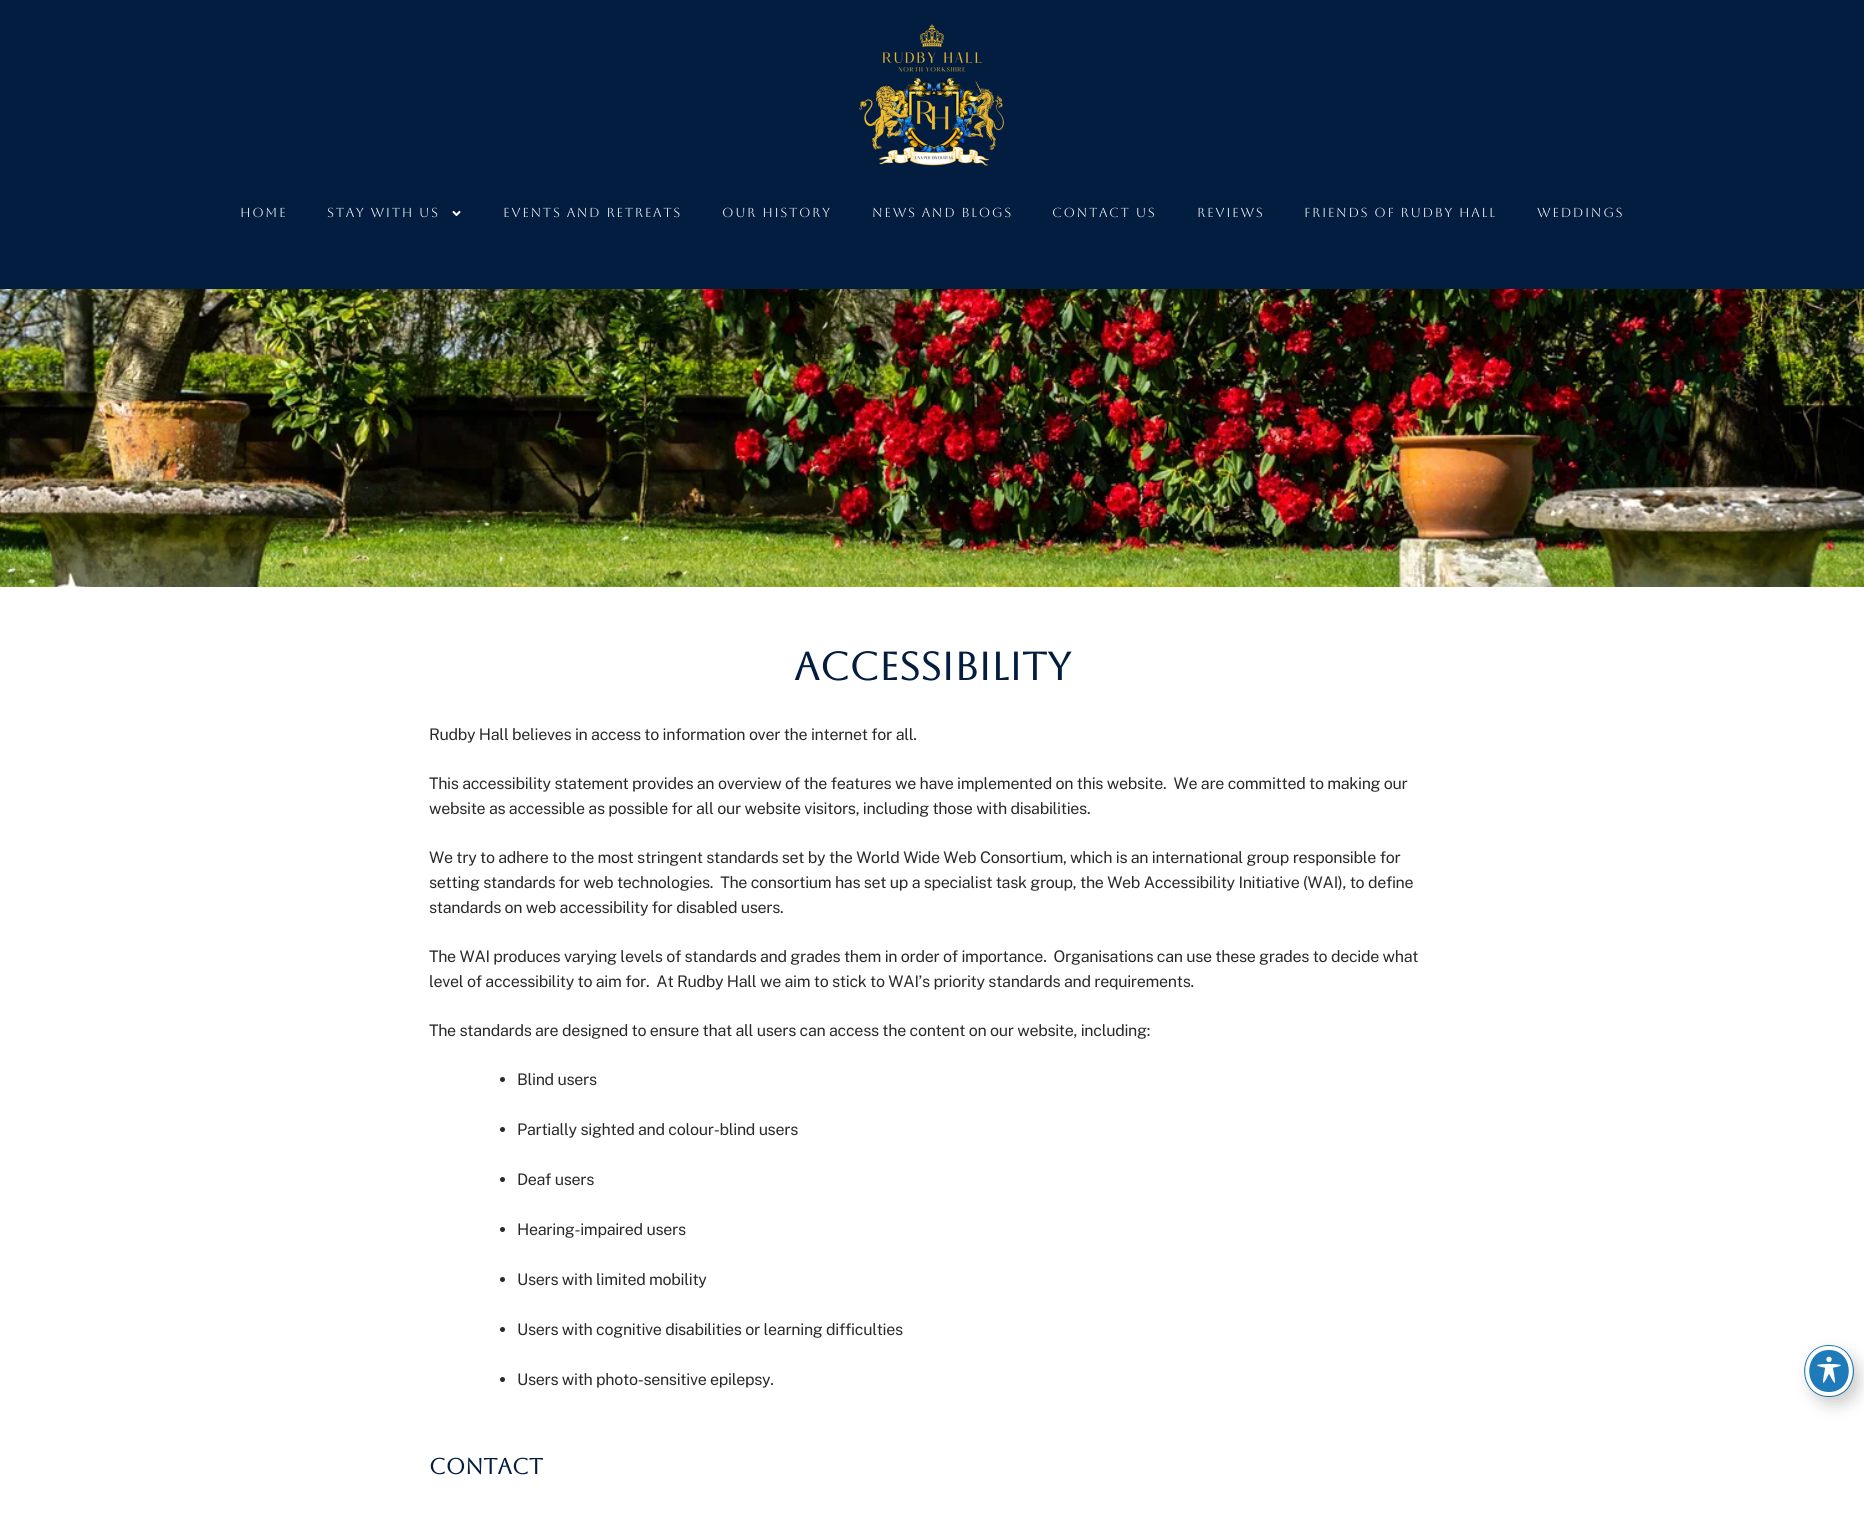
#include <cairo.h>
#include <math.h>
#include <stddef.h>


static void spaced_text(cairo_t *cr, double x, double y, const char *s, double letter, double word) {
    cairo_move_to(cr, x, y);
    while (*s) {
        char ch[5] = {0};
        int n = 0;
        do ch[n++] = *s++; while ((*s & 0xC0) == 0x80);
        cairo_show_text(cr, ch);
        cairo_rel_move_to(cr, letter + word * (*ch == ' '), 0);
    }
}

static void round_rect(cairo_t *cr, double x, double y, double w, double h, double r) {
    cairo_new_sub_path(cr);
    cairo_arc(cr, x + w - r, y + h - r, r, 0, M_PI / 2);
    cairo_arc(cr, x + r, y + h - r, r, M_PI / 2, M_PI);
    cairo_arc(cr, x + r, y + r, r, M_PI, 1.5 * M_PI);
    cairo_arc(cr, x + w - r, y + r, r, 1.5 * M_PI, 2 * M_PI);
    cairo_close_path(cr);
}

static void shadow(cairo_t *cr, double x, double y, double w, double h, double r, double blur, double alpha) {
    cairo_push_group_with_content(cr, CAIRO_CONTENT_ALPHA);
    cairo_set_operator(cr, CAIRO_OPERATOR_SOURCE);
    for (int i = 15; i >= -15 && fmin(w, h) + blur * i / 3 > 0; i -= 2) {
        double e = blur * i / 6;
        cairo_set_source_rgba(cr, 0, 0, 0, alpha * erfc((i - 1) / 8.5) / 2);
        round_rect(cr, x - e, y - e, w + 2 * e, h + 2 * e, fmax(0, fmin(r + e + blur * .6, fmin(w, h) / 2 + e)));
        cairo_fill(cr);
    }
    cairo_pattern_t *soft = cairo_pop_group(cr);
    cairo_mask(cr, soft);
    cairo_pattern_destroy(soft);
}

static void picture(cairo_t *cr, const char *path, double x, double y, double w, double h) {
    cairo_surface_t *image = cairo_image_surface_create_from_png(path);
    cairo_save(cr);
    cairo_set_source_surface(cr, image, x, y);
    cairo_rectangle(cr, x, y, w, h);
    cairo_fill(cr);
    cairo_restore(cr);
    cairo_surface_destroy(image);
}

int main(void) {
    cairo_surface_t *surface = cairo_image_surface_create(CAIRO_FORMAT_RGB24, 1864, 1517);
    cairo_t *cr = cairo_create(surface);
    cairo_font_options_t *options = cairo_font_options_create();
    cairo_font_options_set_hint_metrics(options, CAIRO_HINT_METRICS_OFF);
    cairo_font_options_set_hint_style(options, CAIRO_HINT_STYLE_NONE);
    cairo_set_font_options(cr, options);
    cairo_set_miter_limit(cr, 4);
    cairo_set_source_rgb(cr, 1, 1, 1);
    cairo_paint(cr);
    cairo_set_source_rgb(cr, 0.008, 0.114, 0.251);
    cairo_rectangle(cr, 0, 0, 1864, 289);
    cairo_fill(cr);
    picture(cr, "img1.png", 859, 24, 145, 142);
    cairo_select_font_face(cr, "Aboreto", CAIRO_FONT_SLANT_NORMAL, CAIRO_FONT_WEIGHT_NORMAL);
    cairo_set_font_size(cr, 13);
    cairo_set_source_rgb(cr, 1, 1, 1);
    spaced_text(cr, 240, 217, "HOME", 1.6, 0);
    spaced_text(cr, 327, 217, "STAY WITH US", 1.6, 0);
    picture(cr, "img2.png", 452, 210, 9, 7);
    spaced_text(cr, 503, 217, "EVENTS AND RETREATS", 1.6, 0);
    spaced_text(cr, 722, 217, "OUR HISTORY", 1.6, 0);
    spaced_text(cr, 872, 217, "NEWS AND BLOGS", 1.6, 0);
    spaced_text(cr, 1052, 217, "CONTACT US", 1.6, 0);
    spaced_text(cr, 1197, 217, "REVIEWS", 1.6, 0);
    spaced_text(cr, 1304, 217, "FRIENDS OF RUDBY HALL", 1.6, 0);
    spaced_text(cr, 1537, 217, "WEDDINGS", 1.6, 0);
    picture(cr, "img3.png", 0, 289, 1864, 298);
    cairo_select_font_face(cr, "Aboreto", CAIRO_FONT_SLANT_NORMAL, CAIRO_FONT_WEIGHT_BOLD);
    cairo_set_font_size(cr, 39);
    cairo_set_source_rgb(cr, 0.008, 0.114, 0.251);
    cairo_move_to(cr, 794, 680);
    cairo_show_text(cr, "ACCESSIBILITY");
    cairo_select_font_face(cr, "Public Sans", CAIRO_FONT_SLANT_NORMAL, CAIRO_FONT_WEIGHT_NORMAL);
    cairo_set_font_size(cr, 16);
    cairo_set_source_rgb(cr, 0.161, 0.161, 0.161);
    spaced_text(cr, 429, 740, "Rudby Hall believes in access to information over the internet for all.", -0.3, 0);
    spaced_text(cr, 429, 789, "This accessibility statement provides an overview of the features we have implemented on this website.  We are committed to making our", -0.3, 0);
    spaced_text(cr, 429, 814, "website as accessible as possible for all our website visitors, including those with disabilities.", -0.3, 0);
    spaced_text(cr, 429, 863, "We try to adhere to the most stringent standards set by the World Wide Web Consortium, which is an international group responsible for", -0.3, 0);
    spaced_text(cr, 429, 888, "setting standards for web technologies.  The consortium has set up a specialist task group, the Web Accessibility Initiative (WAI), to define", -0.3, 0);
    spaced_text(cr, 429, 913, "standards on web accessibility for disabled users.", -0.3, 0);
    spaced_text(cr, 429, 962, "The WAI produces varying levels of standards and grades them in order of importance.  Organisations can use these grades to decide what", -0.3, 0);
    spaced_text(cr, 429, 987, "level of accessibility to aim for.  At Rudby Hall we aim to stick to WAI’s priority standards and requirements.", -0.3, 0);
    spaced_text(cr, 429, 1036, "The standards are designed to ensure that all users can access the content on our website, including:", -0.3, 0);
    cairo_new_path(cr);
    cairo_arc(cr, 502.5, 1079.5, 2.5, 0, 2 * M_PI);
    cairo_fill(cr);
    spaced_text(cr, 517, 1085, "Blind users", -0.3, 0);
    cairo_new_path(cr);
    cairo_arc(cr, 502.5, 1129.5, 2.5, 0, 2 * M_PI);
    cairo_fill(cr);
    spaced_text(cr, 517, 1135, "Partially sighted and colour-blind users", -0.3, 0);
    cairo_new_path(cr);
    cairo_arc(cr, 502.5, 1179.5, 2.5, 0, 2 * M_PI);
    cairo_fill(cr);
    spaced_text(cr, 517, 1185, "Deaf users", -0.3, 0);
    cairo_new_path(cr);
    cairo_arc(cr, 502.5, 1229.5, 2.5, 0, 2 * M_PI);
    cairo_fill(cr);
    spaced_text(cr, 517, 1235, "Hearing-impaired users", -0.3, 0);
    cairo_new_path(cr);
    cairo_arc(cr, 502.5, 1279.5, 2.5, 0, 2 * M_PI);
    cairo_fill(cr);
    spaced_text(cr, 517, 1285, "Users with limited mobility", -0.3, 0);
    cairo_new_path(cr);
    cairo_arc(cr, 502.5, 1329.5, 2.5, 0, 2 * M_PI);
    cairo_fill(cr);
    spaced_text(cr, 517, 1335, "Users with cognitive disabilities or learning difficulties", -0.3, 0);
    cairo_new_path(cr);
    cairo_arc(cr, 502.5, 1379.5, 2.5, 0, 2 * M_PI);
    cairo_fill(cr);
    spaced_text(cr, 517, 1385, "Users with photo-sensitive epilepsy.", -0.3, 0);
    cairo_select_font_face(cr, "Aboreto", CAIRO_FONT_SLANT_NORMAL, CAIRO_FONT_WEIGHT_BOLD);
    cairo_set_font_size(cr, 22);
    cairo_set_source_rgb(cr, 0.008, 0.114, 0.251);
    cairo_move_to(cr, 429, 1474);
    cairo_show_text(cr, "contact");
    cairo_new_path(cr);
    cairo_move_to(cr, 1829, 1345.5);
    cairo_curve_to(cr, 1861.5, 1345.5, 1861.5, 1396.5, 1829, 1396.5);
    cairo_curve_to(cr, 1796.5, 1396.5, 1796.5, 1345.5, 1829, 1345.5);
    cairo_close_path(cr);
    cairo_set_source_rgb(cr, 0.118, 0.478, 0.725);
    cairo_set_line_width(cr, 1);
    cairo_stroke(cr);
    cairo_set_source_rgb(cr, 0, 0, 0);
    shadow(cr, 1811, 1354, 48, 50, 24, 8, 0.2);
    cairo_set_source_rgb(cr, 0.118, 0.478, 0.725);
    cairo_new_path(cr);
    cairo_move_to(cr, 1829, 1346);
    cairo_curve_to(cr, 1842.5, 1346, 1853, 1357, 1853, 1371);
    cairo_curve_to(cr, 1853, 1385, 1842.5, 1396, 1829, 1396);
    cairo_curve_to(cr, 1815.5, 1396, 1805, 1385, 1805, 1371);
    cairo_curve_to(cr, 1805, 1357, 1815.5, 1346, 1829, 1346);
    cairo_close_path(cr);
    cairo_fill(cr);
    cairo_new_path(cr);
    cairo_move_to(cr, 1829, 1348);
    cairo_curve_to(cr, 1858, 1348, 1858, 1394, 1829, 1394);
    cairo_curve_to(cr, 1800, 1394, 1800, 1348, 1829, 1348);
    cairo_close_path(cr);
    cairo_set_source_rgb(cr, 1, 1, 1);
    cairo_set_line_width(cr, 4);
    cairo_stroke(cr);
    picture(cr, "img4.png", 1817, 1356, 24, 27);
    cairo_surface_write_to_png(surface, "page.png");
    cairo_font_options_destroy(options);
    cairo_destroy(cr);
    cairo_surface_destroy(surface);
    return 0;
}
